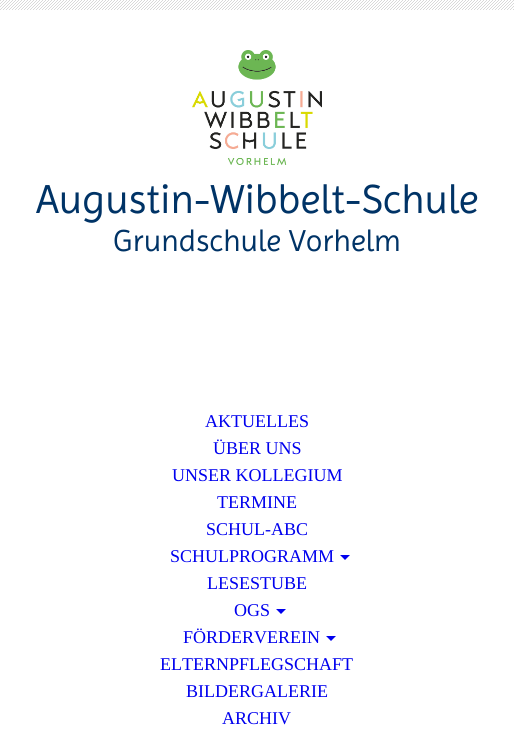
#include <cairo.h>
#include <math.h>
#include <stddef.h>


static void picture(cairo_t *cr, const char *path, double x, double y, double w, double h) {
    cairo_surface_t *image = cairo_image_surface_create_from_png(path);
    cairo_save(cr);
    cairo_set_source_surface(cr, image, x, y);
    cairo_rectangle(cr, x, y, w, h);
    cairo_fill(cr);
    cairo_restore(cr);
    cairo_surface_destroy(image);
}

int main(void) {
    cairo_surface_t *surface = cairo_image_surface_create(CAIRO_FORMAT_RGB24, 514, 744);
    cairo_t *cr = cairo_create(surface);
    cairo_font_options_t *options = cairo_font_options_create();
    cairo_font_options_set_hint_metrics(options, CAIRO_HINT_METRICS_OFF);
    cairo_font_options_set_hint_style(options, CAIRO_HINT_STYLE_NONE);
    cairo_set_font_options(cr, options);
    cairo_set_miter_limit(cr, 4);
    cairo_set_source_rgb(cr, 1, 1, 1);
    cairo_paint(cr);
    picture(cr, "img1.png", 0, 0, 514, 10);
    picture(cr, "img2.png", 192, 50, 130, 115);
    cairo_select_font_face(cr, "Imprima", CAIRO_FONT_SLANT_NORMAL, CAIRO_FONT_WEIGHT_NORMAL);
    cairo_set_font_size(cr, 41.1);
    cairo_set_source_rgb(cr, 0, 0.2, 0.4);
    cairo_move_to(cr, 36, 213);
    cairo_show_text(cr, "Augustin-Wibbelt-Schule");
    cairo_set_font_size(cr, 30.75);
    cairo_move_to(cr, 113, 251);
    cairo_show_text(cr, "Grundschule Vorhelm");
    cairo_select_font_face(cr, "Liberation Serif", CAIRO_FONT_SLANT_NORMAL, CAIRO_FONT_WEIGHT_NORMAL);
    cairo_set_font_size(cr, 18);
    cairo_set_source_rgb(cr, 0, 0, 0.933);
    cairo_move_to(cr, 205, 427);
    cairo_show_text(cr, "AKTUELLES");
    cairo_move_to(cr, 213, 454);
    cairo_show_text(cr, "ÜBER UNS");
    cairo_move_to(cr, 172, 481);
    cairo_show_text(cr, "UNSER KOLLEGIUM");
    cairo_move_to(cr, 217, 508);
    cairo_show_text(cr, "TERMINE");
    cairo_move_to(cr, 206, 535);
    cairo_show_text(cr, "SCHUL-ABC");
    cairo_move_to(cr, 170, 562);
    cairo_show_text(cr, "SCHULPROGRAMM");
    cairo_new_path(cr);
    cairo_move_to(cr, 340, 555);
    cairo_line_to(cr, 350, 555);
    cairo_line_to(cr, 345, 560);
    cairo_close_path(cr);
    cairo_fill(cr);
    cairo_move_to(cr, 207, 589);
    cairo_show_text(cr, "LESESTUBE");
    cairo_move_to(cr, 234, 616);
    cairo_show_text(cr, "OGS");
    cairo_new_path(cr);
    cairo_move_to(cr, 276, 609);
    cairo_line_to(cr, 286, 609);
    cairo_line_to(cr, 281, 614);
    cairo_close_path(cr);
    cairo_move_to(cr, 326, 636);
    cairo_line_to(cr, 336, 636);
    cairo_line_to(cr, 331, 641);
    cairo_close_path(cr);
    cairo_fill(cr);
    cairo_move_to(cr, 183, 643);
    cairo_show_text(cr, "FÖRDERVEREIN");
    cairo_move_to(cr, 160, 670);
    cairo_show_text(cr, "ELTERNPFLEGSCHAFT");
    cairo_move_to(cr, 186, 697);
    cairo_show_text(cr, "BILDERGALERIE");
    cairo_move_to(cr, 222, 724);
    cairo_show_text(cr, "ARCHIV");
    cairo_surface_write_to_png(surface, "page.png");
    cairo_font_options_destroy(options);
    cairo_destroy(cr);
    cairo_surface_destroy(surface);
    return 0;
}
